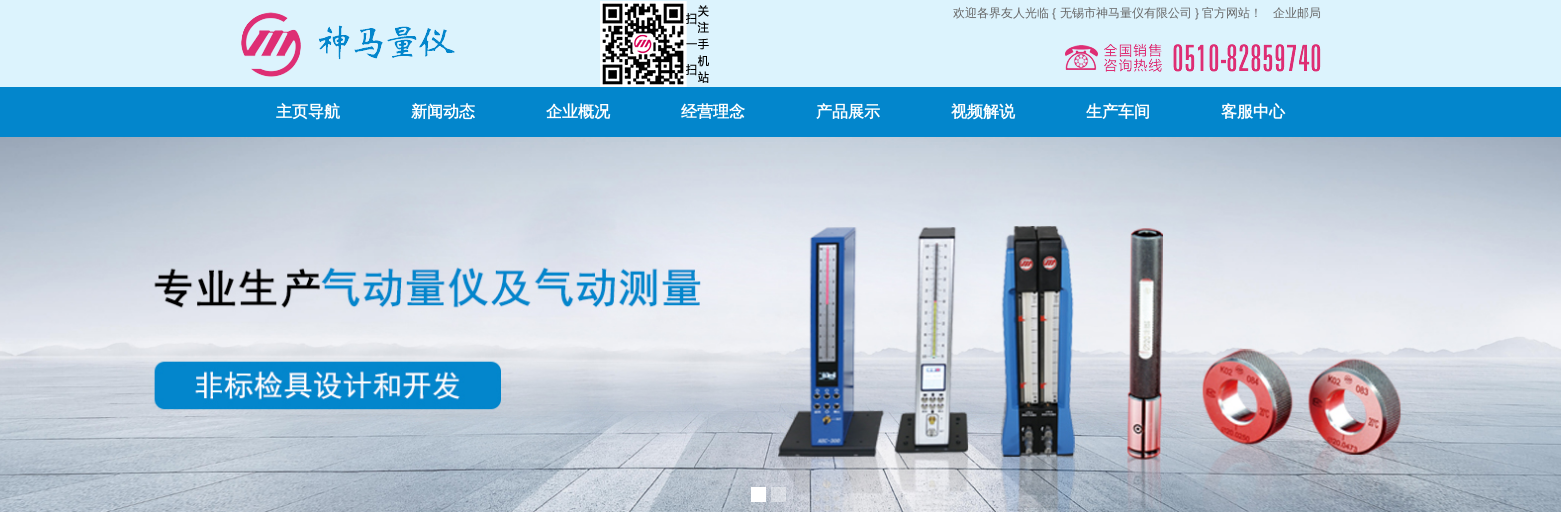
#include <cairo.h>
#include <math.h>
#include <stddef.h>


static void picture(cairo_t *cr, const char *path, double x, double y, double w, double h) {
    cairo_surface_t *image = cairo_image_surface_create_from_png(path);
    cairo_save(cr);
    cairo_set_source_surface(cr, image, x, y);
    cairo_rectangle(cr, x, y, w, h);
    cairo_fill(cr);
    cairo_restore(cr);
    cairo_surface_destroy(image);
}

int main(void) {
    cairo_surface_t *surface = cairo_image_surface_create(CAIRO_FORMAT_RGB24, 1561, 512);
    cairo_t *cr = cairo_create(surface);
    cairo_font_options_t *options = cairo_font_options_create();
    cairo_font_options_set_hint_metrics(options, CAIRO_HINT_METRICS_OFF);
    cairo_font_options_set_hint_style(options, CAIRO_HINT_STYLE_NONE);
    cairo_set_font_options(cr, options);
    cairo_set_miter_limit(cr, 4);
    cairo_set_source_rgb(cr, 0.863, 0.953, 0.992);
    cairo_paint(cr);
    picture(cr, "img1.png", 241, 1, 468, 86);
    cairo_select_font_face(cr, "WenQuanYi Zen Hei Medium", CAIRO_FONT_SLANT_NORMAL, CAIRO_FONT_WEIGHT_NORMAL);
    cairo_set_font_size(cr, 12);
    cairo_set_source_rgb(cr, 0.4, 0.4, 0.4);
    cairo_move_to(cr, 953, 17);
    cairo_show_text(cr, "欢迎各界友人光临");
    cairo_select_font_face(cr, "Liberation Sans", CAIRO_FONT_SLANT_NORMAL, CAIRO_FONT_WEIGHT_NORMAL);
    cairo_move_to(cr, 1052, 17);
    cairo_show_text(cr, "{");
    cairo_select_font_face(cr, "WenQuanYi Zen Hei Medium", CAIRO_FONT_SLANT_NORMAL, CAIRO_FONT_WEIGHT_NORMAL);
    cairo_move_to(cr, 1060, 17);
    cairo_show_text(cr, "无锡市神马量仪有限公司");
    cairo_select_font_face(cr, "Liberation Sans", CAIRO_FONT_SLANT_NORMAL, CAIRO_FONT_WEIGHT_NORMAL);
    cairo_move_to(cr, 1195, 17);
    cairo_show_text(cr, "}");
    cairo_select_font_face(cr, "WenQuanYi Zen Hei Medium", CAIRO_FONT_SLANT_NORMAL, CAIRO_FONT_WEIGHT_NORMAL);
    cairo_move_to(cr, 1202, 17);
    cairo_show_text(cr, "官方网站！");
    cairo_move_to(cr, 1273, 17);
    cairo_show_text(cr, "企业邮局");
    picture(cr, "img2.png", 1065, 43, 256, 29);
    cairo_set_source_rgb(cr, 0.012, 0.525, 0.8);
    cairo_rectangle(cr, 0, 87, 1561, 50);
    cairo_fill(cr);
    cairo_select_font_face(cr, "WenQuanYi Zen Hei", CAIRO_FONT_SLANT_NORMAL, CAIRO_FONT_WEIGHT_BOLD);
    cairo_set_font_size(cr, 16);
    cairo_set_source_rgb(cr, 1, 1, 1);
    cairo_move_to(cr, 276, 117);
    cairo_show_text(cr, "主页导航");
    cairo_move_to(cr, 411, 117);
    cairo_show_text(cr, "新闻动态");
    cairo_move_to(cr, 546, 117);
    cairo_show_text(cr, "企业概况");
    cairo_move_to(cr, 681, 117);
    cairo_show_text(cr, "经营理念");
    cairo_move_to(cr, 816, 117);
    cairo_show_text(cr, "产品展示");
    cairo_move_to(cr, 951, 117);
    cairo_show_text(cr, "视频解说");
    cairo_move_to(cr, 1086, 117);
    cairo_show_text(cr, "生产车间");
    cairo_move_to(cr, 1221, 117);
    cairo_show_text(cr, "客服中心");
    picture(cr, "img3.png", 0, 137, 1561, 375);
    cairo_rectangle(cr, 751, 487, 15, 15);
    cairo_fill(cr);
    cairo_set_source_rgba(cr, 1, 1, 1, 0.4);
    cairo_rectangle(cr, 771, 487, 15, 15);
    cairo_fill(cr);
    cairo_surface_write_to_png(surface, "page.png");
    cairo_font_options_destroy(options);
    cairo_destroy(cr);
    cairo_surface_destroy(surface);
    return 0;
}
